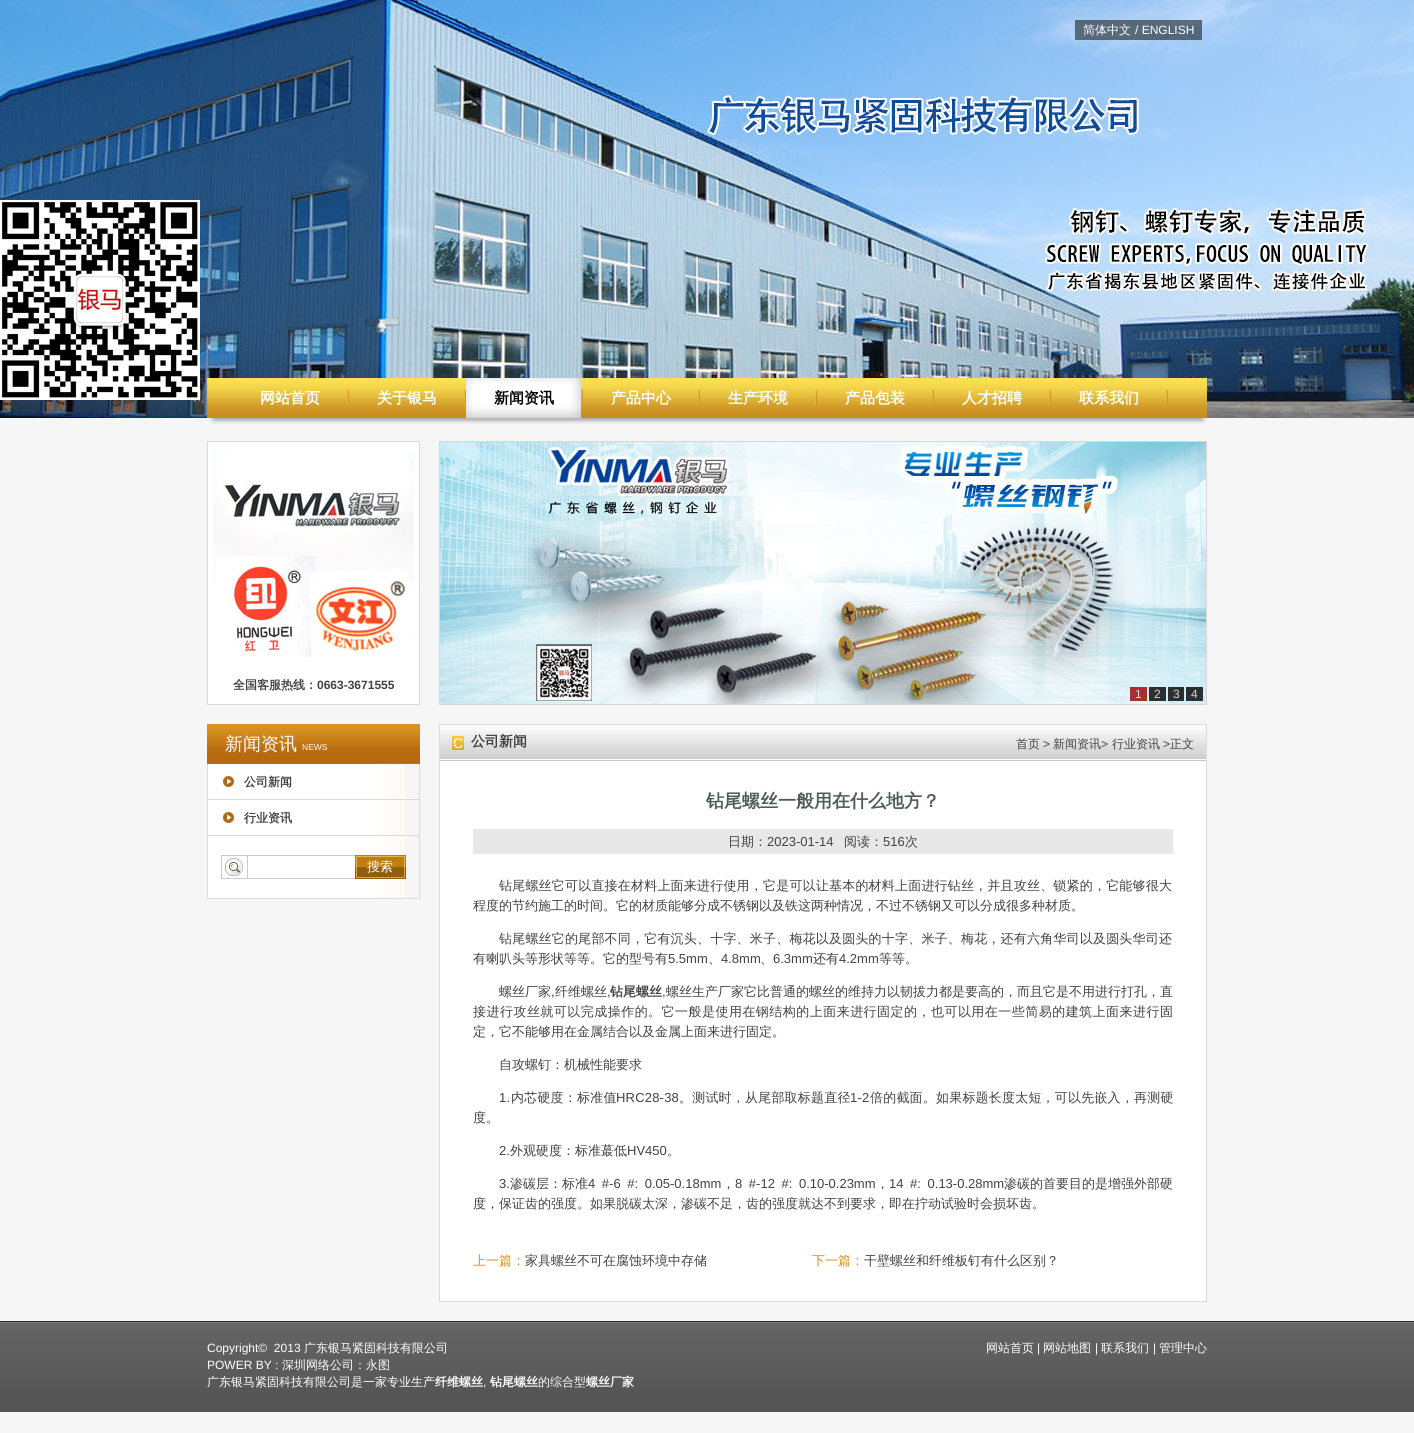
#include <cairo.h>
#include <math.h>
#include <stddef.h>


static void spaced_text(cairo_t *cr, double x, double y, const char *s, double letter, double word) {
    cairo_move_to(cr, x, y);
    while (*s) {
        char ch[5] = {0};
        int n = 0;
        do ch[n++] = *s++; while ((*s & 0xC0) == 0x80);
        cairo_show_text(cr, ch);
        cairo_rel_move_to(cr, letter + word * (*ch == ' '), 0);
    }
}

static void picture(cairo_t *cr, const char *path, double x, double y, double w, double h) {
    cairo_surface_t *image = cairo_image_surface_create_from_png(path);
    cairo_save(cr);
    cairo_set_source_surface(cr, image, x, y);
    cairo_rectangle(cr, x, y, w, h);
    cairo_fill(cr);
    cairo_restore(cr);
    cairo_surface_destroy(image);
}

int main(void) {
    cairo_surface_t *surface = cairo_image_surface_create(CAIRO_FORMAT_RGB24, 1414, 1433);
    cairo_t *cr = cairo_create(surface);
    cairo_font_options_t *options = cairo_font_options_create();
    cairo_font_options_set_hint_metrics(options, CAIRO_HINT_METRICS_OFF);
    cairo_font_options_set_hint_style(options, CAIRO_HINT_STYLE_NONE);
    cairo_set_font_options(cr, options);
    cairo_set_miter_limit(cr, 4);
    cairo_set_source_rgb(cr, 0.961, 0.961, 0.961);
    cairo_paint(cr);
    picture(cr, "img1.png", 0, 0, 1414, 418);
    cairo_set_source_rgba(cr, 0, 0, 0, 0.5);
    cairo_rectangle(cr, 1075, 20, 127, 20);
    cairo_fill(cr);
    cairo_select_font_face(cr, "WenQuanYi Zen Hei Medium", CAIRO_FONT_SLANT_NORMAL, CAIRO_FONT_WEIGHT_NORMAL);
    cairo_set_font_size(cr, 12);
    cairo_set_source_rgb(cr, 1, 1, 1);
    cairo_move_to(cr, 1083, 34);
    cairo_show_text(cr, "简体中文");
    cairo_select_font_face(cr, "Liberation Sans", CAIRO_FONT_SLANT_NORMAL, CAIRO_FONT_WEIGHT_NORMAL);
    cairo_move_to(cr, 1135, 34);
    cairo_show_text(cr, "/ ENGLISH");
    picture(cr, "img2.png", 0, 200, 200, 200);
    picture(cr, "img3.png", 207, 378, 1000, 46);
    picture(cr, "img4.png", 347, 390, 2, 15);
    cairo_select_font_face(cr, "WenQuanYi Zen Hei", CAIRO_FONT_SLANT_NORMAL, CAIRO_FONT_WEIGHT_BOLD);
    cairo_set_font_size(cr, 15);
    cairo_move_to(cr, 260, 403);
    cairo_show_text(cr, "网站首页");
    picture(cr, "img4.png", 464, 390, 2, 15);
    cairo_move_to(cr, 377, 403);
    cairo_show_text(cr, "关于银马");
    picture(cr, "img4.png", 581, 390, 2, 15);
    picture(cr, "img5.png", 466, 378, 115, 40);
    cairo_set_source_rgb(cr, 0, 0, 0);
    cairo_move_to(cr, 494, 403);
    cairo_show_text(cr, "新闻资讯");
    picture(cr, "img4.png", 698, 390, 2, 15);
    cairo_set_source_rgb(cr, 1, 1, 1);
    cairo_move_to(cr, 611, 403);
    cairo_show_text(cr, "产品中心");
    picture(cr, "img4.png", 815, 390, 2, 15);
    cairo_move_to(cr, 728, 403);
    cairo_show_text(cr, "生产环境");
    picture(cr, "img4.png", 932, 390, 2, 15);
    cairo_move_to(cr, 845, 403);
    cairo_show_text(cr, "产品包装");
    picture(cr, "img4.png", 1049, 390, 2, 15);
    cairo_move_to(cr, 962, 403);
    cairo_show_text(cr, "人才招聘");
    picture(cr, "img4.png", 1166, 390, 2, 15);
    cairo_move_to(cr, 1079, 403);
    cairo_show_text(cr, "联系我们");
    cairo_rectangle(cr, 207.5, 441.5, 212, 263);
    cairo_fill_preserve(cr);
    cairo_set_source_rgb(cr, 0.851, 0.851, 0.851);
    cairo_set_line_width(cr, 1);
    cairo_stroke(cr);
    picture(cr, "img6.png", 213, 451, 201, 206);
    cairo_set_font_size(cr, 12);
    cairo_set_source_rgb(cr, 0.259, 0.259, 0.259);
    cairo_move_to(cr, 233, 689);
    cairo_show_text(cr, "全国客服热线：");
    cairo_select_font_face(cr, "Liberation Sans", CAIRO_FONT_SLANT_NORMAL, CAIRO_FONT_WEIGHT_BOLD);
    cairo_move_to(cr, 317, 689);
    cairo_show_text(cr, "0663-3671555");
    cairo_rectangle(cr, 439.5, 441.5, 767, 263);
    cairo_set_source_rgb(cr, 0.843, 0.843, 0.843);
    cairo_stroke(cr);
    picture(cr, "img7.png", 440, 442, 766, 262);
    cairo_set_source_rgba(cr, 0.6, 0, 0, 0.8);
    cairo_rectangle(cr, 1130, 687, 17, 14);
    cairo_fill(cr);
    cairo_select_font_face(cr, "Liberation Sans", CAIRO_FONT_SLANT_NORMAL, CAIRO_FONT_WEIGHT_NORMAL);
    cairo_set_source_rgb(cr, 0.929, 0.839, 0.839);
    cairo_move_to(cr, 1135, 698);
    cairo_show_text(cr, "1");
    cairo_set_source_rgba(cr, 0, 0, 0, 0.8);
    cairo_rectangle(cr, 1149, 687, 17, 14);
    cairo_fill(cr);
    cairo_set_source_rgb(cr, 0.831, 0.839, 0.839);
    cairo_move_to(cr, 1154, 698);
    cairo_show_text(cr, "2");
    cairo_set_source_rgba(cr, 0, 0, 0, 0.8);
    cairo_rectangle(cr, 1168, 687, 16, 14);
    cairo_fill(cr);
    cairo_set_source_rgb(cr, 0.831, 0.839, 0.839);
    cairo_move_to(cr, 1173, 698);
    cairo_show_text(cr, "3");
    cairo_set_source_rgba(cr, 0, 0, 0, 0.8);
    cairo_rectangle(cr, 1186, 687, 17, 14);
    cairo_fill(cr);
    cairo_set_source_rgb(cr, 0.831, 0.839, 0.839);
    cairo_move_to(cr, 1191, 698);
    cairo_show_text(cr, "4");
    picture(cr, "img8.png", 207, 724, 213, 40);
    cairo_select_font_face(cr, "WenQuanYi Zen Hei Medium", CAIRO_FONT_SLANT_NORMAL, CAIRO_FONT_WEIGHT_NORMAL);
    cairo_set_font_size(cr, 18);
    cairo_set_source_rgb(cr, 1, 1, 1);
    cairo_move_to(cr, 225, 750);
    cairo_show_text(cr, "新闻资讯");
    cairo_select_font_face(cr, "Liberation Sans", CAIRO_FONT_SLANT_NORMAL, CAIRO_FONT_WEIGHT_NORMAL);
    cairo_set_font_size(cr, 8.5);
    cairo_move_to(cr, 302, 750);
    cairo_show_text(cr, "NEWS");
    picture(cr, "img9.png", 208, 764, 197, 134);
    cairo_set_source_rgb(cr, 0.859, 0.859, 0.859);
    cairo_rectangle(cr, 419, 764, 1, 135);
    cairo_fill(cr);
    cairo_rectangle(cr, 207, 898, 213, 1);
    cairo_fill(cr);
    cairo_rectangle(cr, 207, 764, 1, 135);
    cairo_fill(cr);
    cairo_rectangle(cr, 208, 799, 211, 1);
    cairo_fill(cr);
    picture(cr, "img10.png", 223, 776, 11, 11);
    cairo_select_font_face(cr, "WenQuanYi Zen Hei", CAIRO_FONT_SLANT_NORMAL, CAIRO_FONT_WEIGHT_BOLD);
    cairo_set_font_size(cr, 12);
    cairo_set_source_rgb(cr, 0.259, 0.259, 0.259);
    cairo_move_to(cr, 244, 786);
    cairo_show_text(cr, "公司新闻");
    cairo_set_source_rgb(cr, 0.859, 0.859, 0.859);
    cairo_rectangle(cr, 208, 835, 211, 1);
    cairo_fill(cr);
    picture(cr, "img10.png", 223, 812, 11, 11);
    cairo_set_source_rgb(cr, 0.259, 0.259, 0.259);
    cairo_move_to(cr, 244, 822);
    cairo_show_text(cr, "行业资讯");
    picture(cr, "img11.png", 221, 855, 26, 24);
    cairo_set_source_rgb(cr, 0.8, 0.8, 0.8);
    cairo_rectangle(cr, 247, 855, 108, 1);
    cairo_fill(cr);
    cairo_rectangle(cr, 247, 878, 108, 1);
    cairo_fill(cr);
    cairo_rectangle(cr, 247, 855, 1, 24);
    cairo_fill(cr);
    picture(cr, "img12.png", 355, 855, 51, 24);
    cairo_select_font_face(cr, "WenQuanYi Zen Hei Medium", CAIRO_FONT_SLANT_NORMAL, CAIRO_FONT_WEIGHT_NORMAL);
    cairo_set_font_size(cr, 13);
    cairo_set_source_rgb(cr, 1, 1, 1);
    cairo_move_to(cr, 367, 871);
    cairo_show_text(cr, "搜索");
    picture(cr, "img13.png", 440, 725, 766, 36);
    cairo_set_source_rgb(cr, 0.859, 0.859, 0.859);
    cairo_rectangle(cr, 439, 724, 768, 1);
    cairo_fill(cr);
    cairo_rectangle(cr, 1206, 724, 1, 578);
    cairo_fill(cr);
    cairo_rectangle(cr, 439, 724, 1, 37);
    cairo_fill(cr);
    picture(cr, "img14.png", 452, 736, 12, 14);
    cairo_select_font_face(cr, "Liberation Sans", CAIRO_FONT_SLANT_NORMAL, CAIRO_FONT_WEIGHT_NORMAL);
    cairo_set_font_size(cr, 14);
    cairo_set_source_rgb(cr, 1, 1, 1);
    cairo_move_to(cr, 453, 748);
    cairo_show_text(cr, "C");
    cairo_select_font_face(cr, "WenQuanYi Zen Hei", CAIRO_FONT_SLANT_NORMAL, CAIRO_FONT_WEIGHT_BOLD);
    cairo_set_source_rgb(cr, 0.259, 0.259, 0.259);
    cairo_move_to(cr, 471, 746);
    cairo_show_text(cr, "公司新闻");
    cairo_select_font_face(cr, "WenQuanYi Zen Hei Medium", CAIRO_FONT_SLANT_NORMAL, CAIRO_FONT_WEIGHT_NORMAL);
    cairo_set_font_size(cr, 12);
    cairo_move_to(cr, 1016, 748);
    cairo_show_text(cr, "首页");
    cairo_select_font_face(cr, "Liberation Sans", CAIRO_FONT_SLANT_NORMAL, CAIRO_FONT_WEIGHT_NORMAL);
    cairo_move_to(cr, 1043, 748);
    cairo_show_text(cr, ">");
    cairo_select_font_face(cr, "WenQuanYi Zen Hei Medium", CAIRO_FONT_SLANT_NORMAL, CAIRO_FONT_WEIGHT_NORMAL);
    cairo_move_to(cr, 1053, 748);
    cairo_show_text(cr, "新闻资讯");
    cairo_select_font_face(cr, "Liberation Sans", CAIRO_FONT_SLANT_NORMAL, CAIRO_FONT_WEIGHT_NORMAL);
    cairo_move_to(cr, 1101, 748);
    cairo_show_text(cr, ">");
    cairo_select_font_face(cr, "WenQuanYi Zen Hei Medium", CAIRO_FONT_SLANT_NORMAL, CAIRO_FONT_WEIGHT_NORMAL);
    cairo_move_to(cr, 1112, 748);
    cairo_show_text(cr, "行业资讯");
    cairo_select_font_face(cr, "Liberation Sans", CAIRO_FONT_SLANT_NORMAL, CAIRO_FONT_WEIGHT_NORMAL);
    cairo_move_to(cr, 1163, 748);
    cairo_show_text(cr, ">");
    cairo_select_font_face(cr, "WenQuanYi Zen Hei Medium", CAIRO_FONT_SLANT_NORMAL, CAIRO_FONT_WEIGHT_NORMAL);
    cairo_move_to(cr, 1170, 748);
    cairo_show_text(cr, "正文");
    cairo_set_source_rgb(cr, 1, 1, 1);
    cairo_rectangle(cr, 440, 761, 766, 540);
    cairo_fill(cr);
    cairo_set_source_rgb(cr, 0.859, 0.859, 0.859);
    cairo_rectangle(cr, 439, 1301, 768, 1);
    cairo_fill(cr);
    cairo_rectangle(cr, 439, 761, 1, 541);
    cairo_fill(cr);
    cairo_select_font_face(cr, "WenQuanYi Zen Hei", CAIRO_FONT_SLANT_NORMAL, CAIRO_FONT_WEIGHT_BOLD);
    cairo_set_font_size(cr, 18);
    cairo_set_source_rgb(cr, 0.302, 0.357, 0.361);
    cairo_move_to(cr, 706, 807);
    cairo_show_text(cr, "钻尾螺丝一般用在什么地方？");
    cairo_set_source_rgb(cr, 0.91, 0.91, 0.91);
    cairo_rectangle(cr, 473, 829, 700, 25);
    cairo_fill(cr);
    cairo_select_font_face(cr, "WenQuanYi Zen Hei Medium", CAIRO_FONT_SLANT_NORMAL, CAIRO_FONT_WEIGHT_NORMAL);
    cairo_set_font_size(cr, 13);
    cairo_set_source_rgb(cr, 0.259, 0.259, 0.259);
    cairo_move_to(cr, 728, 846);
    cairo_show_text(cr, "日期：");
    cairo_select_font_face(cr, "Liberation Sans", CAIRO_FONT_SLANT_NORMAL, CAIRO_FONT_WEIGHT_NORMAL);
    cairo_move_to(cr, 767, 846);
    cairo_show_text(cr, "2023-01-14");
    cairo_select_font_face(cr, "WenQuanYi Zen Hei Medium", CAIRO_FONT_SLANT_NORMAL, CAIRO_FONT_WEIGHT_NORMAL);
    cairo_move_to(cr, 844, 846);
    cairo_show_text(cr, "阅读：");
    cairo_select_font_face(cr, "Liberation Sans", CAIRO_FONT_SLANT_NORMAL, CAIRO_FONT_WEIGHT_NORMAL);
    cairo_move_to(cr, 883, 846);
    cairo_show_text(cr, "516");
    cairo_select_font_face(cr, "WenQuanYi Zen Hei Medium", CAIRO_FONT_SLANT_NORMAL, CAIRO_FONT_WEIGHT_NORMAL);
    cairo_move_to(cr, 905, 846);
    cairo_show_text(cr, "次");
    spaced_text(cr, 499, 890, "钻尾螺丝它可以直接在材料上面来进行使用，它是可以让基本的材料上面进行钻丝，并且攻丝、锁紧的，它能够很大", 0.2, 0);
    cairo_move_to(cr, 473, 910);
    cairo_show_text(cr, "程度的节约施工的时间。它的材质能够分成不锈钢以及铁这两种情况，不过不锈钢又可以分成很多种材质。");
    spaced_text(cr, 499, 943, "钻尾螺丝它的尾部不同，它有沉头、十字、米子、梅花以及圆头的十字、米子、梅花，还有六角华司以及圆头华司还", 0.2, 0);
    cairo_move_to(cr, 473, 963);
    cairo_show_text(cr, "有喇叭头等形状等等。它的型号有");
    cairo_select_font_face(cr, "Liberation Sans", CAIRO_FONT_SLANT_NORMAL, CAIRO_FONT_WEIGHT_NORMAL);
    cairo_move_to(cr, 668, 963);
    cairo_show_text(cr, "5.5mm");
    cairo_select_font_face(cr, "WenQuanYi Zen Hei Medium", CAIRO_FONT_SLANT_NORMAL, CAIRO_FONT_WEIGHT_NORMAL);
    cairo_move_to(cr, 708, 963);
    cairo_show_text(cr, "、");
    cairo_select_font_face(cr, "Liberation Sans", CAIRO_FONT_SLANT_NORMAL, CAIRO_FONT_WEIGHT_NORMAL);
    cairo_move_to(cr, 721, 963);
    cairo_show_text(cr, "4.8mm");
    cairo_select_font_face(cr, "WenQuanYi Zen Hei Medium", CAIRO_FONT_SLANT_NORMAL, CAIRO_FONT_WEIGHT_NORMAL);
    cairo_move_to(cr, 760, 963);
    cairo_show_text(cr, "、");
    cairo_select_font_face(cr, "Liberation Sans", CAIRO_FONT_SLANT_NORMAL, CAIRO_FONT_WEIGHT_NORMAL);
    cairo_move_to(cr, 773, 963);
    cairo_show_text(cr, "6.3mm");
    cairo_select_font_face(cr, "WenQuanYi Zen Hei Medium", CAIRO_FONT_SLANT_NORMAL, CAIRO_FONT_WEIGHT_NORMAL);
    cairo_move_to(cr, 813, 963);
    cairo_show_text(cr, "还有");
    cairo_select_font_face(cr, "Liberation Sans", CAIRO_FONT_SLANT_NORMAL, CAIRO_FONT_WEIGHT_NORMAL);
    cairo_move_to(cr, 839, 963);
    cairo_show_text(cr, "4.2mm");
    cairo_select_font_face(cr, "WenQuanYi Zen Hei Medium", CAIRO_FONT_SLANT_NORMAL, CAIRO_FONT_WEIGHT_NORMAL);
    cairo_move_to(cr, 879, 963);
    cairo_show_text(cr, "等等。");
    cairo_move_to(cr, 499, 996);
    cairo_show_text(cr, "螺丝厂家 纤维螺丝");
    cairo_select_font_face(cr, "WenQuanYi Zen Hei", CAIRO_FONT_SLANT_NORMAL, CAIRO_FONT_WEIGHT_BOLD);
    cairo_move_to(cr, 610, 996);
    cairo_show_text(cr, "钻尾螺丝");
    cairo_select_font_face(cr, "WenQuanYi Zen Hei Medium", CAIRO_FONT_SLANT_NORMAL, CAIRO_FONT_WEIGHT_NORMAL);
    cairo_move_to(cr, 666, 996);
    cairo_show_text(cr, "螺丝生产厂家它比普通的螺丝的维持力以韧拔力都是要高的，而且它是不用进行打孔，直");
    cairo_select_font_face(cr, "Liberation Sans", CAIRO_FONT_SLANT_NORMAL, CAIRO_FONT_WEIGHT_NORMAL);
    cairo_move_to(cr, 551, 996);
    cairo_show_text(cr, ",");
    cairo_move_to(cr, 607, 996);
    cairo_show_text(cr, ",");
    cairo_move_to(cr, 662, 996);
    cairo_show_text(cr, ",");
    cairo_select_font_face(cr, "WenQuanYi Zen Hei Medium", CAIRO_FONT_SLANT_NORMAL, CAIRO_FONT_WEIGHT_NORMAL);
    spaced_text(cr, 473, 1016, "接进行攻丝就可以完成操作的。它一般是使用在钢结构的上面来进行固定的，也可以用在一些简易的建筑上面来进行固", 0.47, 0);
    cairo_move_to(cr, 473, 1036);
    cairo_show_text(cr, "定，它不能够用在金属结合以及金属上面来进行固定。");
    cairo_move_to(cr, 499, 1069);
    cairo_show_text(cr, "自攻螺钉：机械性能要求");
    cairo_select_font_face(cr, "Liberation Sans", CAIRO_FONT_SLANT_NORMAL, CAIRO_FONT_WEIGHT_NORMAL);
    spaced_text(cr, 499, 1102, "1.", 0.2, 0);
    cairo_select_font_face(cr, "WenQuanYi Zen Hei Medium", CAIRO_FONT_SLANT_NORMAL, CAIRO_FONT_WEIGHT_NORMAL);
    spaced_text(cr, 511, 1102, "内芯硬度：标准值", 0.2, 0);
    cairo_select_font_face(cr, "Liberation Sans", CAIRO_FONT_SLANT_NORMAL, CAIRO_FONT_WEIGHT_NORMAL);
    spaced_text(cr, 616, 1102, "HRC28-38", 0.2, 0);
    cairo_select_font_face(cr, "WenQuanYi Zen Hei Medium", CAIRO_FONT_SLANT_NORMAL, CAIRO_FONT_WEIGHT_NORMAL);
    spaced_text(cr, 679, 1102, "。测试时，从尾部取标题直径", 0.2, 0);
    cairo_select_font_face(cr, "Liberation Sans", CAIRO_FONT_SLANT_NORMAL, CAIRO_FONT_WEIGHT_NORMAL);
    spaced_text(cr, 850, 1102, "1-2", 0.2, 0);
    cairo_select_font_face(cr, "WenQuanYi Zen Hei Medium", CAIRO_FONT_SLANT_NORMAL, CAIRO_FONT_WEIGHT_NORMAL);
    spaced_text(cr, 870, 1102, "倍的截面。如果标题长度太短，可以先嵌入，再测硬", 0.2, 0);
    cairo_move_to(cr, 473, 1122);
    cairo_show_text(cr, "度。");
    cairo_select_font_face(cr, "Liberation Sans", CAIRO_FONT_SLANT_NORMAL, CAIRO_FONT_WEIGHT_NORMAL);
    cairo_move_to(cr, 499, 1155);
    cairo_show_text(cr, "2.");
    cairo_select_font_face(cr, "WenQuanYi Zen Hei Medium", CAIRO_FONT_SLANT_NORMAL, CAIRO_FONT_WEIGHT_NORMAL);
    cairo_move_to(cr, 510, 1155);
    cairo_show_text(cr, "外观硬度：标准蕞低");
    cairo_select_font_face(cr, "Liberation Sans", CAIRO_FONT_SLANT_NORMAL, CAIRO_FONT_WEIGHT_NORMAL);
    cairo_move_to(cr, 627, 1155);
    cairo_show_text(cr, "HV450");
    cairo_select_font_face(cr, "WenQuanYi Zen Hei Medium", CAIRO_FONT_SLANT_NORMAL, CAIRO_FONT_WEIGHT_NORMAL);
    cairo_move_to(cr, 667, 1155);
    cairo_show_text(cr, "。");
    cairo_select_font_face(cr, "Liberation Sans", CAIRO_FONT_SLANT_NORMAL, CAIRO_FONT_WEIGHT_NORMAL);
    cairo_move_to(cr, 499, 1188);
    cairo_show_text(cr, "3.");
    cairo_select_font_face(cr, "WenQuanYi Zen Hei Medium", CAIRO_FONT_SLANT_NORMAL, CAIRO_FONT_WEIGHT_NORMAL);
    cairo_move_to(cr, 510, 1188);
    cairo_show_text(cr, "渗碳层：标准");
    cairo_select_font_face(cr, "Liberation Sans", CAIRO_FONT_SLANT_NORMAL, CAIRO_FONT_WEIGHT_NORMAL);
    spaced_text(cr, 588, 1188, "4 #-6 #: 0.05-0.18mm", 0, 3);
    cairo_select_font_face(cr, "WenQuanYi Zen Hei Medium", CAIRO_FONT_SLANT_NORMAL, CAIRO_FONT_WEIGHT_NORMAL);
    cairo_move_to(cr, 722, 1188);
    cairo_show_text(cr, "，");
    cairo_select_font_face(cr, "Liberation Sans", CAIRO_FONT_SLANT_NORMAL, CAIRO_FONT_WEIGHT_NORMAL);
    spaced_text(cr, 735, 1188, "8 #-12 #: 0.10-0.23mm", 0, 3);
    cairo_select_font_face(cr, "WenQuanYi Zen Hei Medium", CAIRO_FONT_SLANT_NORMAL, CAIRO_FONT_WEIGHT_NORMAL);
    cairo_move_to(cr, 876, 1188);
    cairo_show_text(cr, "，");
    cairo_select_font_face(cr, "Liberation Sans", CAIRO_FONT_SLANT_NORMAL, CAIRO_FONT_WEIGHT_NORMAL);
    spaced_text(cr, 889, 1188, "14 #: 0.13-0.28mm", 0, 3);
    cairo_select_font_face(cr, "WenQuanYi Zen Hei Medium", CAIRO_FONT_SLANT_NORMAL, CAIRO_FONT_WEIGHT_NORMAL);
    cairo_move_to(cr, 1004, 1188);
    cairo_show_text(cr, "渗碳的首要目的是增强外部硬");
    cairo_move_to(cr, 473, 1208);
    cairo_show_text(cr, "度，保证齿的强度。如果脱碳太深，渗碳不足，齿的强度就达不到要求，即在拧动试验时会损坏齿。");
    cairo_set_source_rgb(cr, 0.831, 0.553, 0.114);
    cairo_move_to(cr, 473, 1265);
    cairo_show_text(cr, "上一篇：");
    cairo_set_source_rgb(cr, 0.259, 0.259, 0.259);
    cairo_move_to(cr, 525, 1265);
    cairo_show_text(cr, "家具螺丝不可在腐蚀环境中存储");
    cairo_set_source_rgb(cr, 0.831, 0.553, 0.114);
    cairo_move_to(cr, 812, 1265);
    cairo_show_text(cr, "下一篇：");
    cairo_set_source_rgb(cr, 0.259, 0.259, 0.259);
    cairo_move_to(cr, 864, 1265);
    cairo_show_text(cr, "干壁螺丝和纤维板钉有什么区别？");
    picture(cr, "img15.png", 0, 1321, 1414, 91);
    cairo_select_font_face(cr, "Liberation Sans", CAIRO_FONT_SLANT_NORMAL, CAIRO_FONT_WEIGHT_NORMAL);
    cairo_set_font_size(cr, 12);
    cairo_set_source_rgb(cr, 1, 1, 1);
    cairo_move_to(cr, 207, 1352);
    cairo_show_text(cr, "Copyright©  2013");
    cairo_select_font_face(cr, "WenQuanYi Zen Hei Medium", CAIRO_FONT_SLANT_NORMAL, CAIRO_FONT_WEIGHT_NORMAL);
    cairo_move_to(cr, 304, 1352);
    cairo_show_text(cr, "广东银马紧固科技有限公司");
    cairo_select_font_face(cr, "Liberation Sans", CAIRO_FONT_SLANT_NORMAL, CAIRO_FONT_WEIGHT_NORMAL);
    cairo_move_to(cr, 207, 1369);
    cairo_show_text(cr, "POWER BY :");
    cairo_select_font_face(cr, "WenQuanYi Zen Hei Medium", CAIRO_FONT_SLANT_NORMAL, CAIRO_FONT_WEIGHT_NORMAL);
    cairo_move_to(cr, 282, 1369);
    cairo_show_text(cr, "深圳网络公司：永图");
    cairo_move_to(cr, 207, 1386);
    cairo_show_text(cr, "广东银马紧固科技有限公司是一家专业生产");
    cairo_select_font_face(cr, "WenQuanYi Zen Hei", CAIRO_FONT_SLANT_NORMAL, CAIRO_FONT_WEIGHT_BOLD);
    cairo_move_to(cr, 435, 1386);
    cairo_show_text(cr, "纤维螺丝");
    cairo_select_font_face(cr, "Liberation Sans", CAIRO_FONT_SLANT_NORMAL, CAIRO_FONT_WEIGHT_NORMAL);
    cairo_move_to(cr, 483, 1386);
    cairo_show_text(cr, ",");
    cairo_select_font_face(cr, "WenQuanYi Zen Hei", CAIRO_FONT_SLANT_NORMAL, CAIRO_FONT_WEIGHT_BOLD);
    cairo_move_to(cr, 490, 1386);
    cairo_show_text(cr, "钻尾螺丝");
    cairo_select_font_face(cr, "WenQuanYi Zen Hei Medium", CAIRO_FONT_SLANT_NORMAL, CAIRO_FONT_WEIGHT_NORMAL);
    cairo_move_to(cr, 538, 1386);
    cairo_show_text(cr, "的综合型");
    cairo_select_font_face(cr, "WenQuanYi Zen Hei", CAIRO_FONT_SLANT_NORMAL, CAIRO_FONT_WEIGHT_BOLD);
    cairo_move_to(cr, 586, 1386);
    cairo_show_text(cr, "螺丝厂家");
    cairo_select_font_face(cr, "WenQuanYi Zen Hei Medium", CAIRO_FONT_SLANT_NORMAL, CAIRO_FONT_WEIGHT_NORMAL);
    cairo_move_to(cr, 986, 1352);
    cairo_show_text(cr, "网站首页");
    cairo_select_font_face(cr, "Liberation Sans", CAIRO_FONT_SLANT_NORMAL, CAIRO_FONT_WEIGHT_NORMAL);
    cairo_move_to(cr, 1037, 1352);
    cairo_show_text(cr, "|");
    cairo_select_font_face(cr, "WenQuanYi Zen Hei Medium", CAIRO_FONT_SLANT_NORMAL, CAIRO_FONT_WEIGHT_NORMAL);
    cairo_move_to(cr, 1043, 1352);
    cairo_show_text(cr, "网站地图");
    cairo_select_font_face(cr, "Liberation Sans", CAIRO_FONT_SLANT_NORMAL, CAIRO_FONT_WEIGHT_NORMAL);
    cairo_move_to(cr, 1095, 1352);
    cairo_show_text(cr, "|");
    cairo_select_font_face(cr, "WenQuanYi Zen Hei Medium", CAIRO_FONT_SLANT_NORMAL, CAIRO_FONT_WEIGHT_NORMAL);
    cairo_move_to(cr, 1101, 1352);
    cairo_show_text(cr, "联系我们");
    cairo_select_font_face(cr, "Liberation Sans", CAIRO_FONT_SLANT_NORMAL, CAIRO_FONT_WEIGHT_NORMAL);
    cairo_move_to(cr, 1153, 1352);
    cairo_show_text(cr, "|");
    cairo_select_font_face(cr, "WenQuanYi Zen Hei Medium", CAIRO_FONT_SLANT_NORMAL, CAIRO_FONT_WEIGHT_NORMAL);
    cairo_move_to(cr, 1159, 1352);
    cairo_show_text(cr, "管理中心");
    cairo_surface_write_to_png(surface, "page.png");
    cairo_font_options_destroy(options);
    cairo_destroy(cr);
    cairo_surface_destroy(surface);
    return 0;
}
